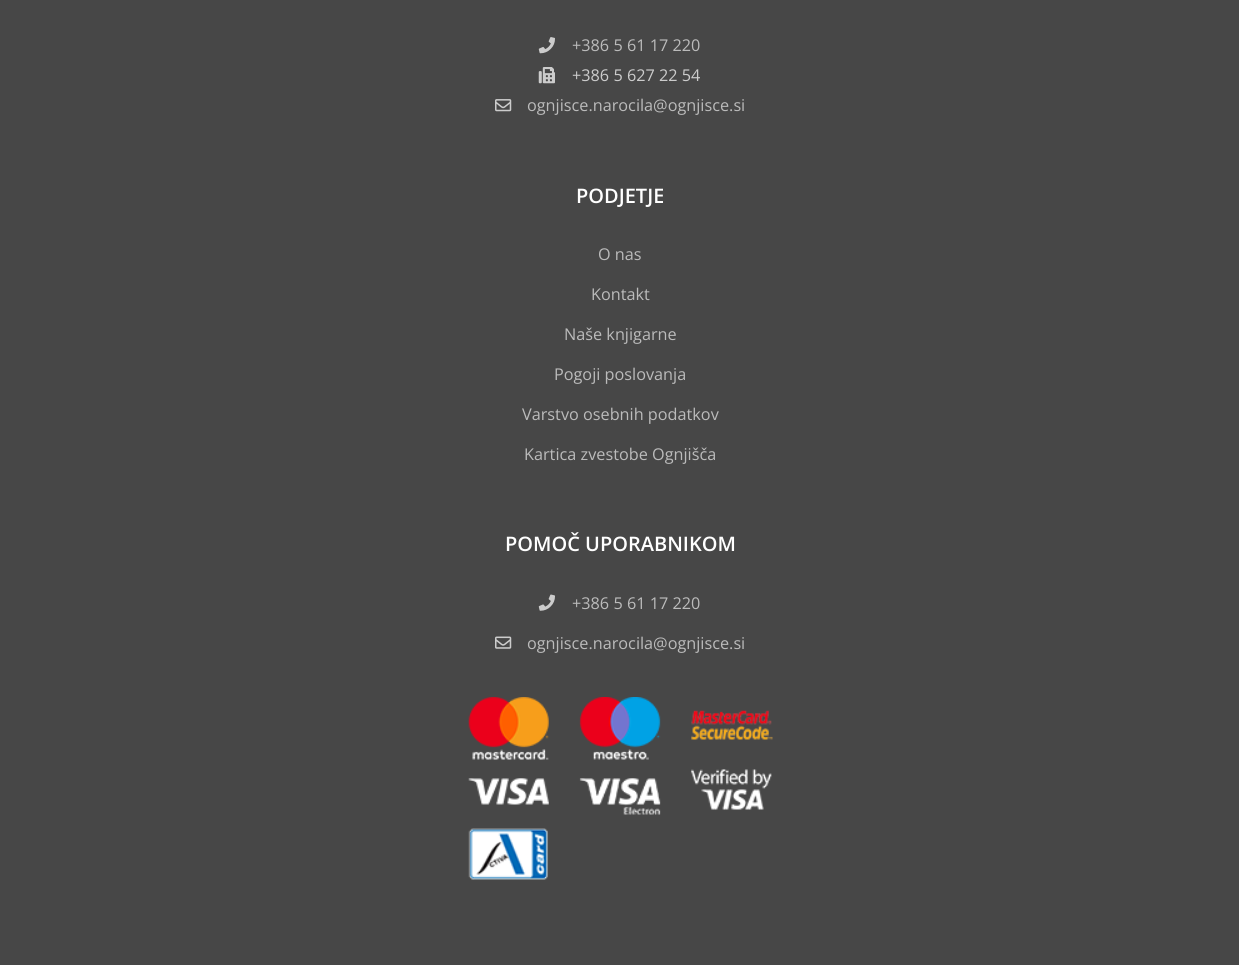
#include <cairo.h>
#include <math.h>
#include <stddef.h>


static void picture(cairo_t *cr, const char *path, double x, double y, double w, double h) {
    cairo_surface_t *image = cairo_image_surface_create_from_png(path);
    cairo_save(cr);
    cairo_set_source_surface(cr, image, x, y);
    cairo_rectangle(cr, x, y, w, h);
    cairo_fill(cr);
    cairo_restore(cr);
    cairo_surface_destroy(image);
}

int main(void) {
    cairo_surface_t *surface = cairo_image_surface_create(CAIRO_FORMAT_RGB24, 1239, 965);
    cairo_t *cr = cairo_create(surface);
    cairo_font_options_t *options = cairo_font_options_create();
    cairo_font_options_set_hint_metrics(options, CAIRO_HINT_METRICS_OFF);
    cairo_font_options_set_hint_style(options, CAIRO_HINT_STYLE_NONE);
    cairo_set_font_options(cr, options);
    cairo_set_miter_limit(cr, 4);
    cairo_set_source_rgb(cr, 0.278, 0.278, 0.278);
    cairo_paint(cr);
    picture(cr, "img1.png", 538, 37, 17, 17);
    cairo_select_font_face(cr, "Open Sans", CAIRO_FONT_SLANT_NORMAL, CAIRO_FONT_WEIGHT_NORMAL);
    cairo_set_font_size(cr, 16.25);
    cairo_set_source_rgb(cr, 0.733, 0.733, 0.733);
    cairo_move_to(cr, 572, 51);
    cairo_show_text(cr, "+386 5 61 17 220");
    picture(cr, "img2.png", 538, 67, 17, 17);
    cairo_set_source_rgb(cr, 0.8, 0.8, 0.8);
    cairo_move_to(cr, 572, 81);
    cairo_show_text(cr, "+386 5 627 22 54");
    picture(cr, "img3.png", 495, 99, 17, 13);
    cairo_set_source_rgb(cr, 0.733, 0.733, 0.733);
    cairo_move_to(cr, 527, 111);
    cairo_show_text(cr, "ognjisce.narocila@ognjisce.si");
    cairo_select_font_face(cr, "Open Sans SemiBold", CAIRO_FONT_SLANT_NORMAL, CAIRO_FONT_WEIGHT_NORMAL);
    cairo_set_font_size(cr, 20);
    cairo_set_source_rgb(cr, 1, 1, 1);
    cairo_move_to(cr, 576, 203);
    cairo_show_text(cr, "PODJETJE");
    cairo_select_font_face(cr, "Open Sans", CAIRO_FONT_SLANT_NORMAL, CAIRO_FONT_WEIGHT_NORMAL);
    cairo_set_font_size(cr, 16.25);
    cairo_set_source_rgb(cr, 0.733, 0.733, 0.733);
    cairo_move_to(cr, 598, 260);
    cairo_show_text(cr, "O nas");
    cairo_move_to(cr, 591, 300);
    cairo_show_text(cr, "Kontakt");
    cairo_move_to(cr, 564, 340);
    cairo_show_text(cr, "Naše knjigarne");
    cairo_move_to(cr, 554, 380);
    cairo_show_text(cr, "Pogoji poslovanja");
    cairo_move_to(cr, 522, 420);
    cairo_show_text(cr, "Varstvo osebnih podatkov");
    cairo_move_to(cr, 524, 460);
    cairo_show_text(cr, "Kartica zvestobe Ognjišča");
    cairo_select_font_face(cr, "Open Sans SemiBold", CAIRO_FONT_SLANT_NORMAL, CAIRO_FONT_WEIGHT_NORMAL);
    cairo_set_font_size(cr, 20);
    cairo_set_source_rgb(cr, 1, 1, 1);
    cairo_move_to(cr, 505, 551);
    cairo_show_text(cr, "POMOČ UPORABNIKOM");
    picture(cr, "img4.png", 538, 594, 17, 17);
    cairo_select_font_face(cr, "Open Sans", CAIRO_FONT_SLANT_NORMAL, CAIRO_FONT_WEIGHT_NORMAL);
    cairo_set_font_size(cr, 16.25);
    cairo_set_source_rgb(cr, 0.733, 0.733, 0.733);
    cairo_move_to(cr, 572, 609);
    cairo_show_text(cr, "+386 5 61 17 220");
    picture(cr, "img5.png", 495, 636, 17, 13);
    cairo_move_to(cr, 527, 649);
    cairo_show_text(cr, "ognjisce.narocila@ognjisce.si");
    picture(cr, "img6.png", 468, 697, 305, 183);
    cairo_surface_write_to_png(surface, "page.png");
    cairo_font_options_destroy(options);
    cairo_destroy(cr);
    cairo_surface_destroy(surface);
    return 0;
}
